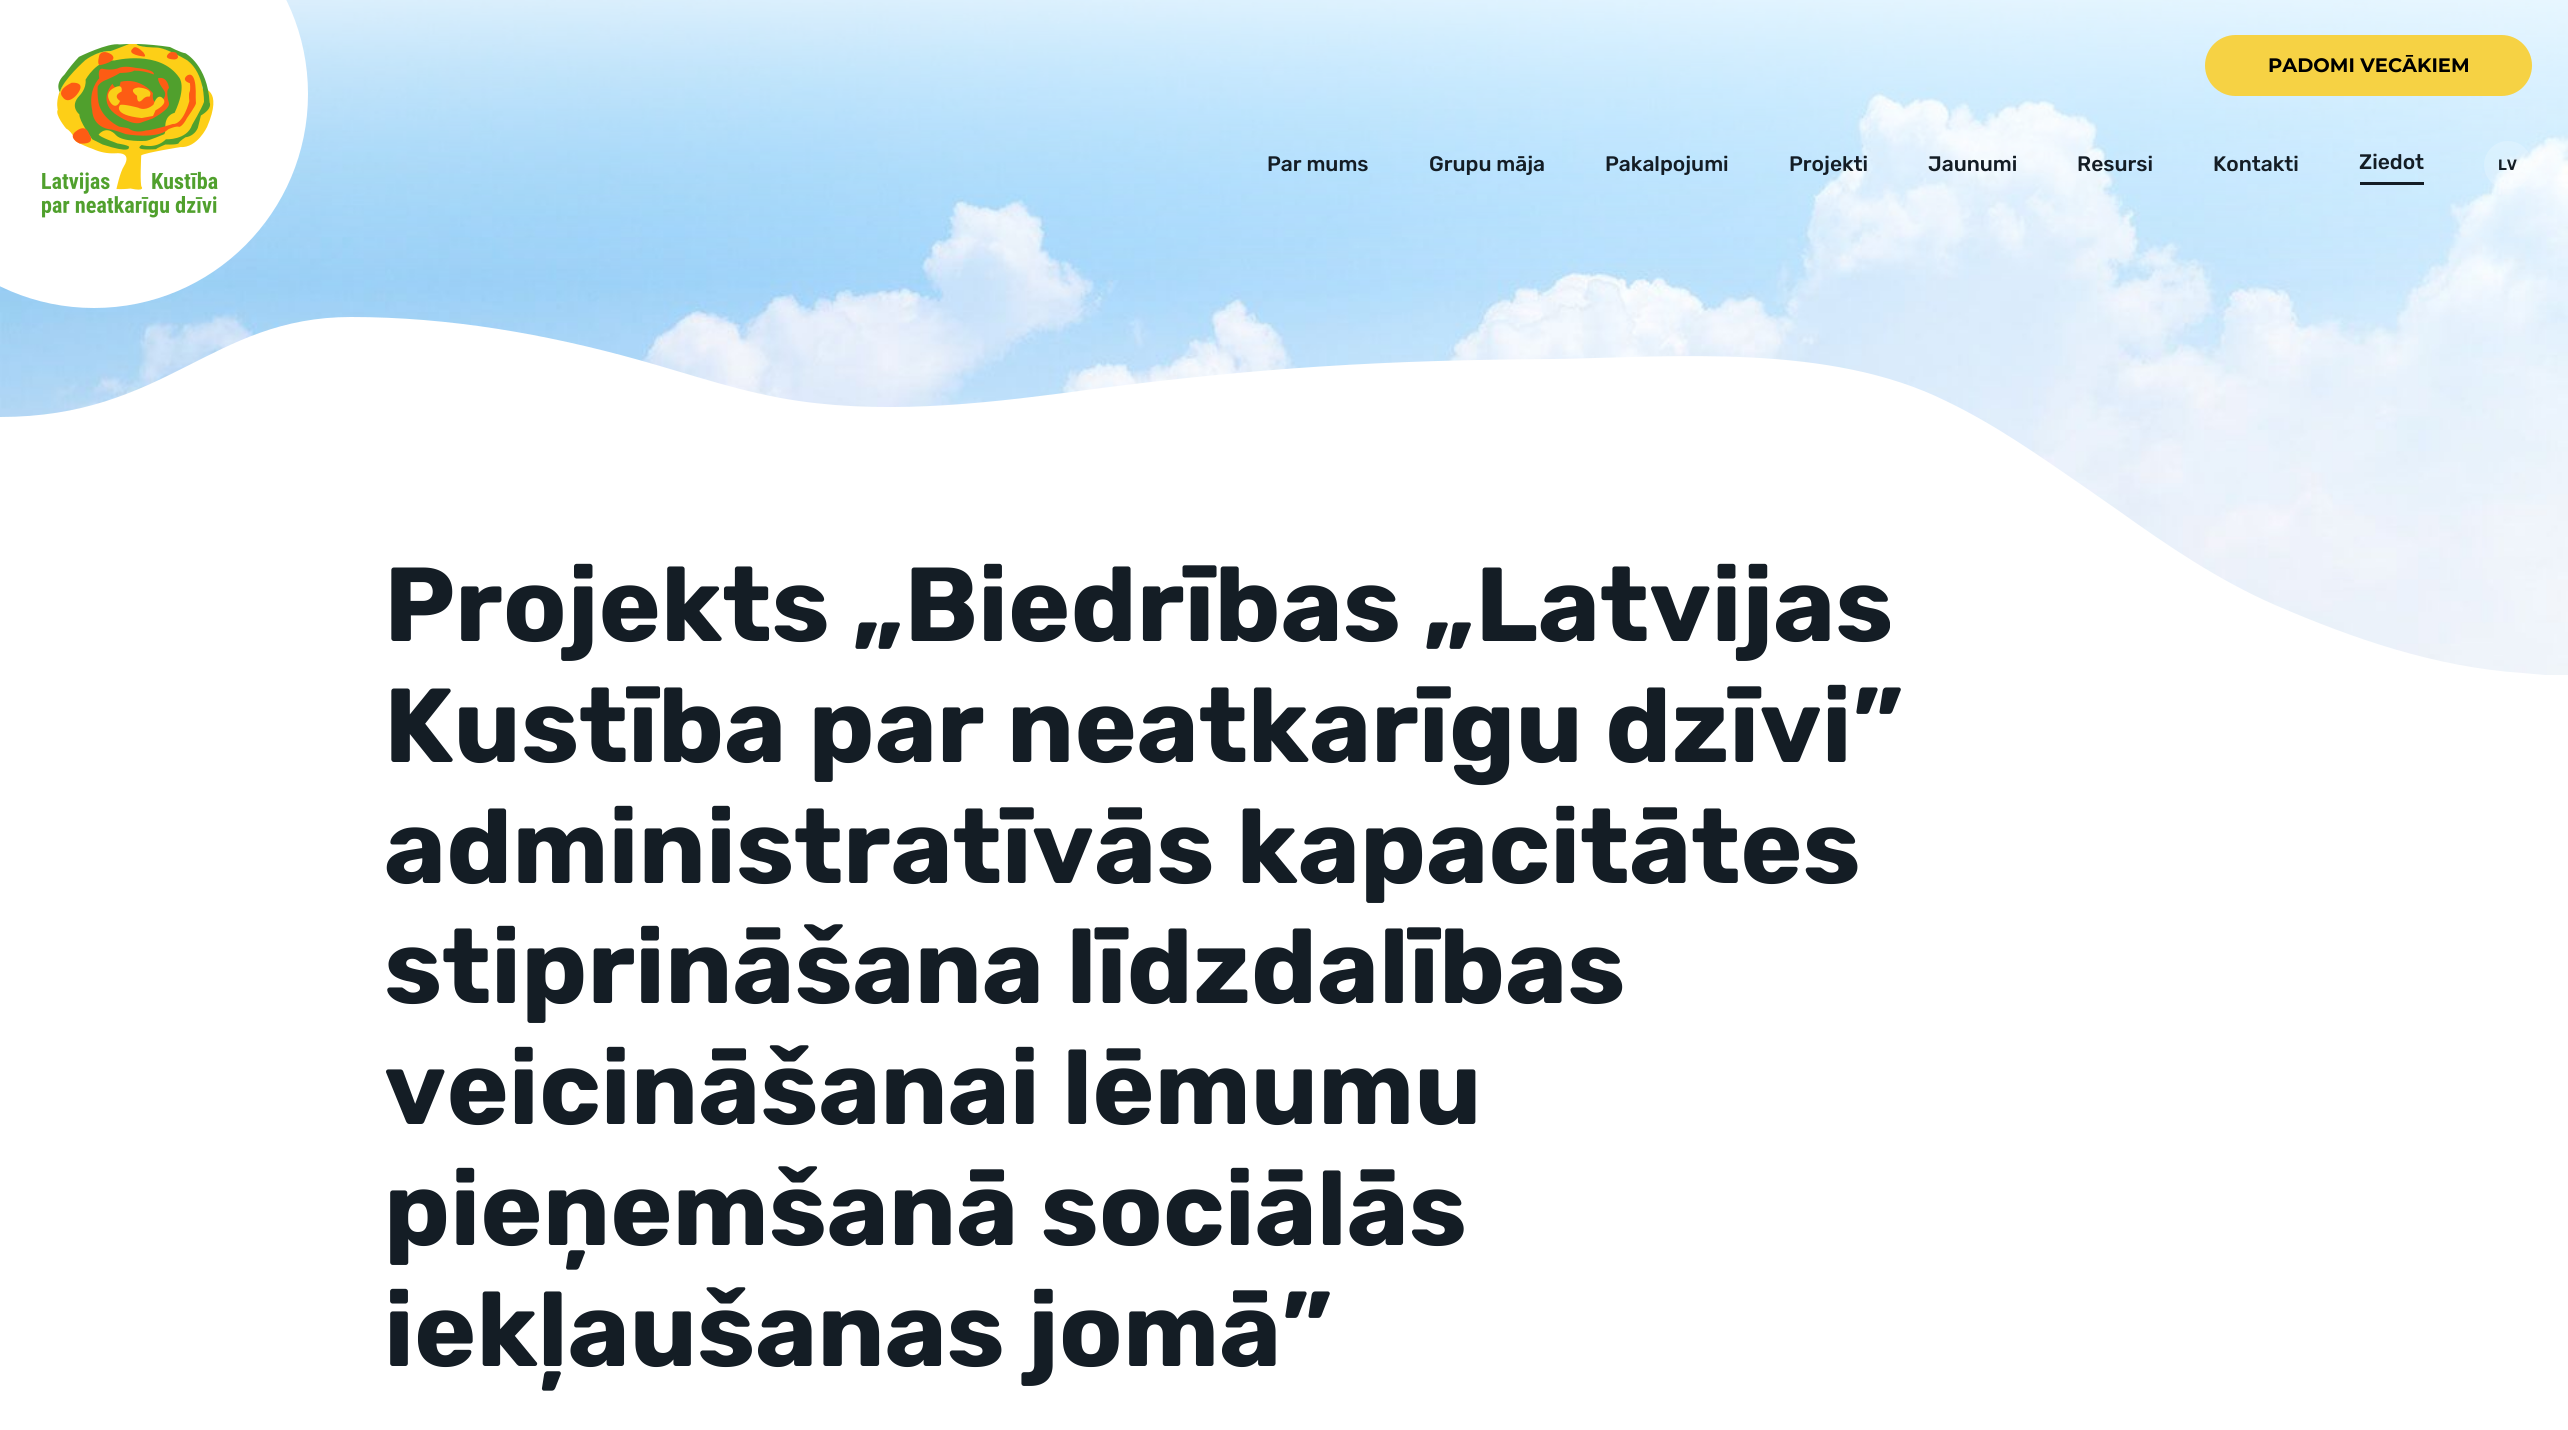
#include <cairo.h>
#include <math.h>
#include <stddef.h>


static void round_rect(cairo_t *cr, double x, double y, double w, double h, double r) {
    cairo_new_sub_path(cr);
    cairo_arc(cr, x + w - r, y + h - r, r, 0, M_PI / 2);
    cairo_arc(cr, x + r, y + h - r, r, M_PI / 2, M_PI);
    cairo_arc(cr, x + r, y + r, r, M_PI, 1.5 * M_PI);
    cairo_arc(cr, x + w - r, y + r, r, 1.5 * M_PI, 2 * M_PI);
    cairo_close_path(cr);
}

static void picture(cairo_t *cr, const char *path, double x, double y, double w, double h) {
    cairo_surface_t *image = cairo_image_surface_create_from_png(path);
    cairo_save(cr);
    cairo_set_source_surface(cr, image, x, y);
    cairo_rectangle(cr, x, y, w, h);
    cairo_fill(cr);
    cairo_restore(cr);
    cairo_surface_destroy(image);
}

int main(void) {
    cairo_surface_t *surface = cairo_image_surface_create(CAIRO_FORMAT_RGB24, 2568, 1430);
    cairo_t *cr = cairo_create(surface);
    cairo_font_options_t *options = cairo_font_options_create();
    cairo_font_options_set_hint_metrics(options, CAIRO_HINT_METRICS_OFF);
    cairo_font_options_set_hint_style(options, CAIRO_HINT_STYLE_NONE);
    cairo_set_font_options(cr, options);
    cairo_set_miter_limit(cr, 4);
    cairo_set_source_rgb(cr, 1, 1, 1);
    cairo_paint(cr);
    picture(cr, "img2.png", 0, 0, 2568, 675);
    cairo_set_source_rgb(cr, 1, 1, 1);
    cairo_arc(cr, 94, 94, 214, 0, 2 * M_PI);
    cairo_fill(cr);
    picture(cr, "img1.png", 42, 44, 176, 174);
    cairo_set_source_rgb(cr, 0.961, 0.824, 0.267);
    round_rect(cr, 2205, 35, 327, 61, 30.5);
    cairo_fill(cr);
    cairo_select_font_face(cr, "Montserrat", CAIRO_FONT_SLANT_NORMAL, CAIRO_FONT_WEIGHT_BOLD);
    cairo_set_font_size(cr, 19.5);
    cairo_set_source_rgb(cr, 0, 0, 0);
    cairo_move_to(cr, 2268, 72);
    cairo_show_text(cr, "PADOMI VECĀKIEM");
    cairo_select_font_face(cr, "Rubik Medium", CAIRO_FONT_SLANT_NORMAL, CAIRO_FONT_WEIGHT_NORMAL);
    cairo_set_font_size(cr, 21);
    cairo_set_source_rgb(cr, 0.082, 0.114, 0.145);
    cairo_move_to(cr, 1267, 171);
    cairo_show_text(cr, "Par mums");
    cairo_move_to(cr, 1429, 171);
    cairo_show_text(cr, "Grupu māja");
    cairo_move_to(cr, 1605, 171);
    cairo_show_text(cr, "Pakalpojumi");
    cairo_move_to(cr, 1789, 171);
    cairo_show_text(cr, "Projekti");
    cairo_move_to(cr, 1928, 171);
    cairo_show_text(cr, "Jaunumi");
    cairo_move_to(cr, 2077, 171);
    cairo_show_text(cr, "Resursi");
    cairo_move_to(cr, 2213, 171);
    cairo_show_text(cr, "Kontakti");
    cairo_rectangle(cr, 2360, 182, 64, 3);
    cairo_fill(cr);
    cairo_move_to(cr, 2359, 169);
    cairo_show_text(cr, "Ziedot");
    cairo_set_source_rgba(cr, 1, 1, 1, 0.2);
    cairo_new_path(cr);
    cairo_arc(cr, 2508, 165, 24, 0, 2 * M_PI);
    cairo_fill(cr);
    cairo_select_font_face(cr, "Rubik SemiBold", CAIRO_FONT_SLANT_NORMAL, CAIRO_FONT_WEIGHT_NORMAL);
    cairo_set_font_size(cr, 15);
    cairo_set_source_rgb(cr, 0.082, 0.114, 0.145);
    cairo_move_to(cr, 2498, 170);
    cairo_show_text(cr, "LV");
    cairo_set_source_rgb(cr, 1, 1, 1);
    cairo_set_fill_rule(cr, CAIRO_FILL_RULE_EVEN_ODD);
    cairo_new_path(cr);
    cairo_move_to(cr, 0, 417);
    cairo_curve_to(cr, 166, 417, 211, 317, 351, 317);
    cairo_curve_to(cr, 449, 317, 546, 334, 639, 360);
    cairo_curve_to(cr, 693, 375, 743, 393, 799, 401);
    cairo_curve_to(cr, 896, 415, 997, 402, 1094, 389);
    cairo_curve_to(cr, 1256, 368, 1383, 360, 1554, 359);
    cairo_curve_to(cr, 1674, 357, 1829, 343, 1946, 401);
    cairo_curve_to(cr, 1996, 425, 2041, 457, 2086, 488);
    cairo_line_to(cr, 2119, 511);
    cairo_curve_to(cr, 2168, 546, 2218, 580, 2275, 605);
    cairo_curve_to(cr, 2354, 639, 2435, 667, 2522, 673);
    cairo_line_to(cr, 2568, 677);
    cairo_line_to(cr, 0, 677);
    cairo_close_path(cr);
    cairo_fill(cr);
    cairo_select_font_face(cr, "Rubik", CAIRO_FONT_SLANT_NORMAL, CAIRO_FONT_WEIGHT_BOLD);
    cairo_set_font_size(cr, 105);
    cairo_set_source_rgb(cr, 0.082, 0.114, 0.145);
    cairo_move_to(cr, 384, 641);
    cairo_show_text(cr, "Projekts „Biedrības „Latvijas");
    cairo_move_to(cr, 384, 762);
    cairo_show_text(cr, "Kustība par neatkarīgu dzīvi”");
    cairo_move_to(cr, 384, 883);
    cairo_show_text(cr, "administratīvās kapacitātes");
    cairo_move_to(cr, 384, 1003);
    cairo_show_text(cr, "stiprināšana līdzdalības");
    cairo_move_to(cr, 384, 1124);
    cairo_show_text(cr, "veicināšanai lēmumu");
    cairo_move_to(cr, 384, 1245);
    cairo_show_text(cr, "pieņemšanā sociālās");
    cairo_move_to(cr, 384, 1366);
    cairo_show_text(cr, "iekļaušanas jomā”");
    cairo_surface_write_to_png(surface, "page.png");
    cairo_font_options_destroy(options);
    cairo_destroy(cr);
    cairo_surface_destroy(surface);
    return 0;
}
